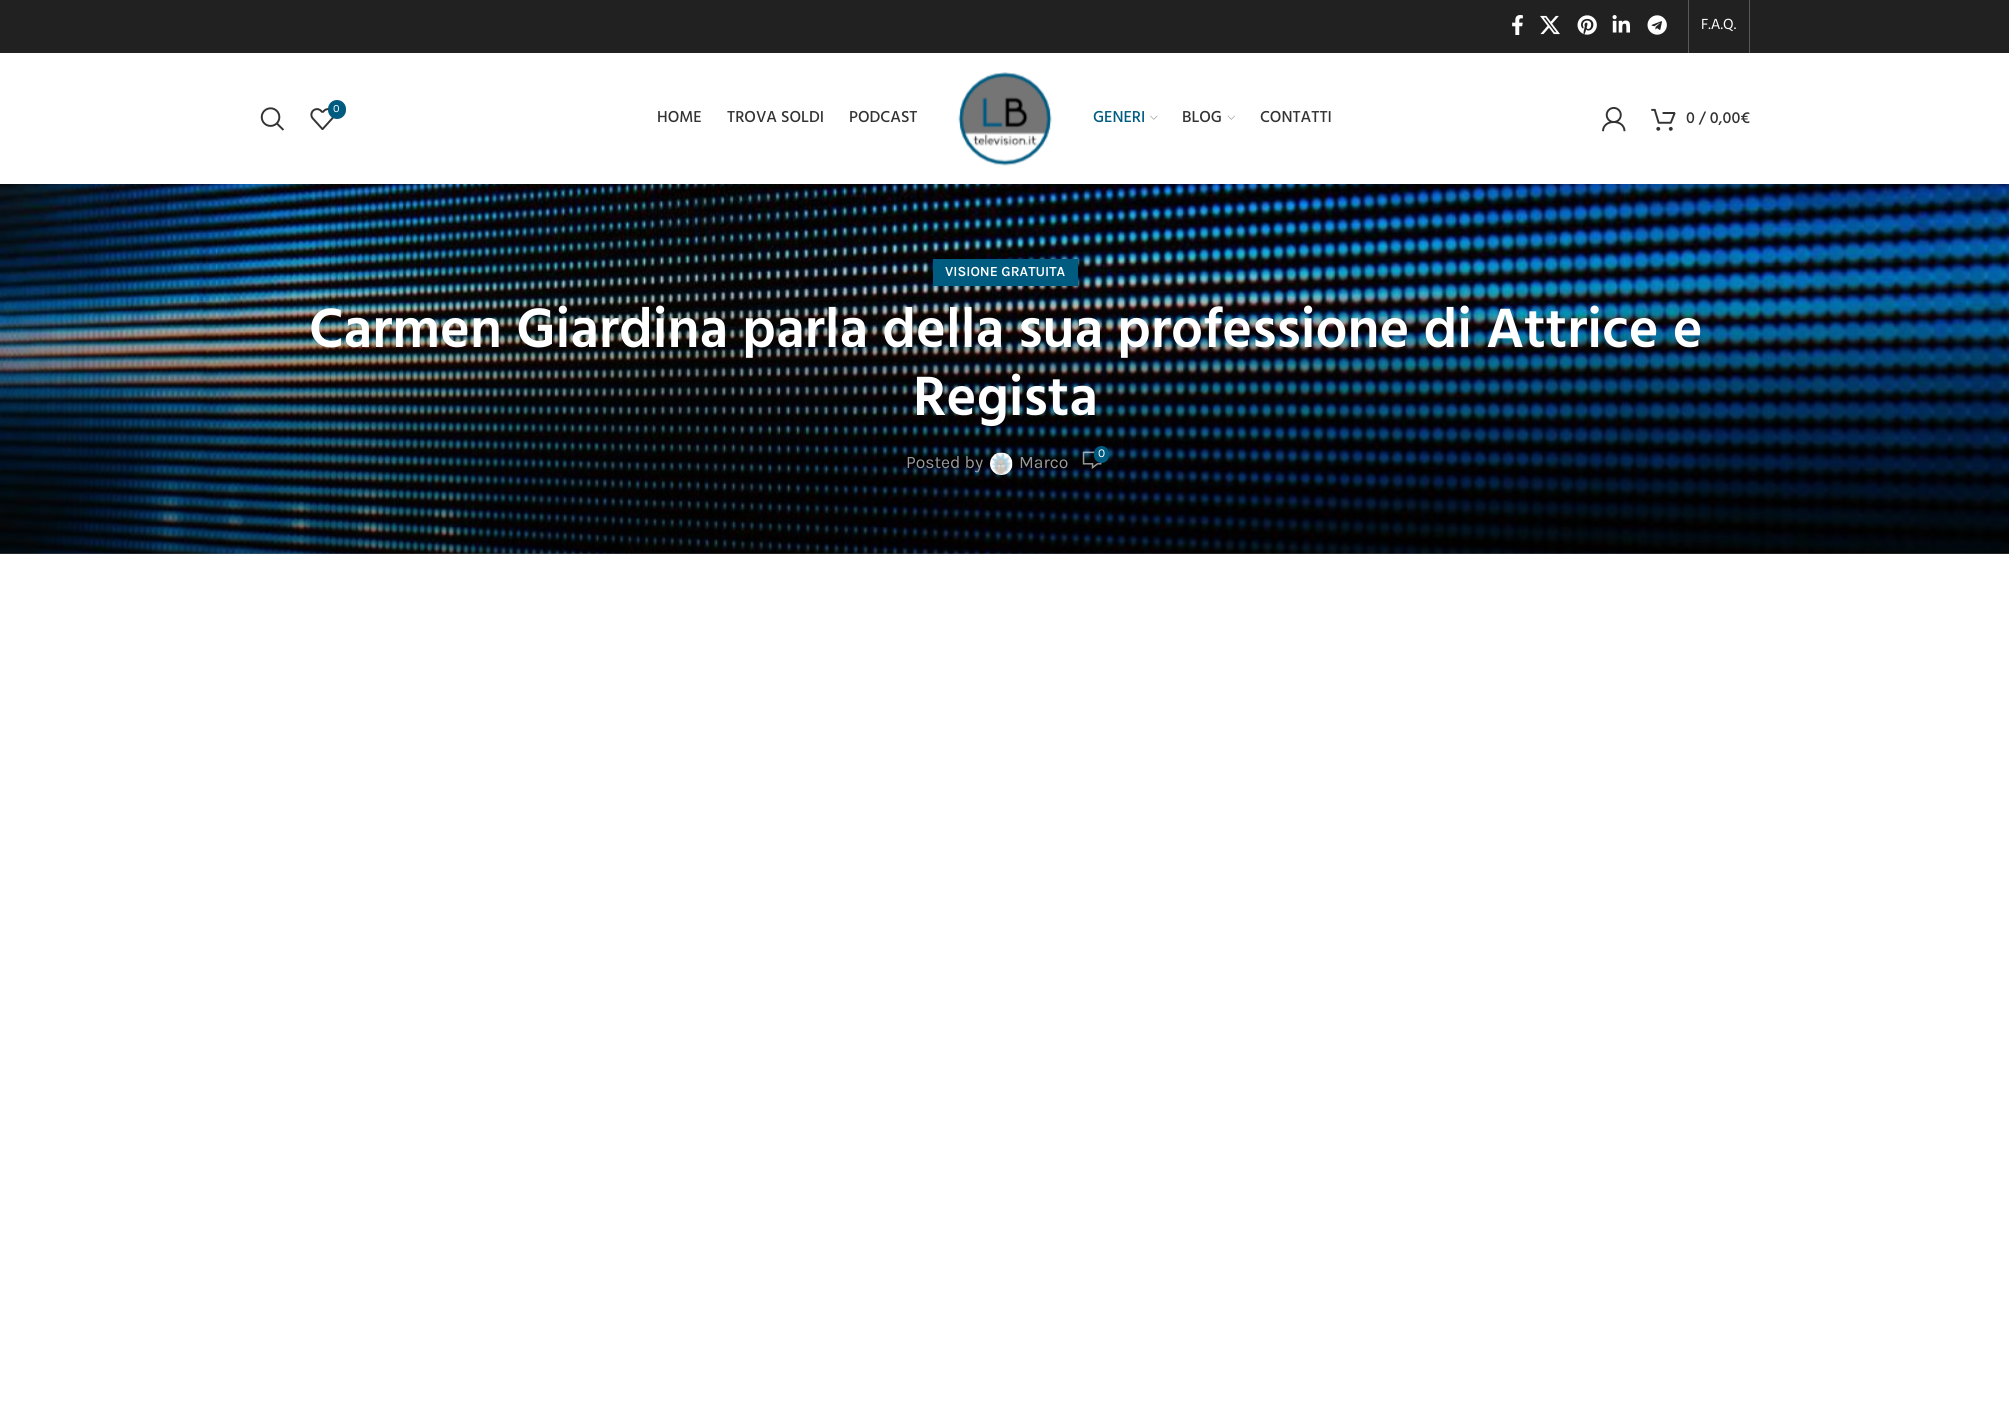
#include <cairo.h>
#include <math.h>
#include <stddef.h>


static void round_rect(cairo_t *cr, double x, double y, double w, double h, double r) {
    cairo_new_sub_path(cr);
    cairo_arc(cr, x + w - r, y + h - r, r, 0, M_PI / 2);
    cairo_arc(cr, x + r, y + h - r, r, M_PI / 2, M_PI);
    cairo_arc(cr, x + r, y + r, r, M_PI, 1.5 * M_PI);
    cairo_arc(cr, x + w - r, y + r, r, 1.5 * M_PI, 2 * M_PI);
    cairo_close_path(cr);
}

static void picture(cairo_t *cr, const char *path, double x, double y, double w, double h) {
    cairo_surface_t *image = cairo_image_surface_create_from_png(path);
    cairo_save(cr);
    cairo_set_source_surface(cr, image, x, y);
    cairo_rectangle(cr, x, y, w, h);
    cairo_fill(cr);
    cairo_restore(cr);
    cairo_surface_destroy(image);
}

int main(void) {
    cairo_surface_t *surface = cairo_image_surface_create(CAIRO_FORMAT_RGB24, 2009, 1422);
    cairo_t *cr = cairo_create(surface);
    cairo_font_options_t *options = cairo_font_options_create();
    cairo_font_options_set_hint_metrics(options, CAIRO_HINT_METRICS_OFF);
    cairo_font_options_set_hint_style(options, CAIRO_HINT_STYLE_NONE);
    cairo_set_font_options(cr, options);
    cairo_set_miter_limit(cr, 4);
    cairo_pattern_t *gradient;
    cairo_set_source_rgb(cr, 1, 1, 1);
    cairo_paint(cr);
    cairo_set_source_rgb(cr, 0.129, 0.129, 0.129);
    cairo_rectangle(cr, 0, 0, 2009, 53);
    cairo_fill(cr);
    picture(cr, "img1.png", 1512, 15, 11, 20);
    picture(cr, "img2.png", 1540, 15, 20, 20);
    picture(cr, "img3.png", 1577, 15, 20, 20);
    picture(cr, "img4.png", 1612, 15, 18, 18);
    picture(cr, "img5.png", 1647, 15, 20, 20);
    cairo_set_source_rgb(cr, 0.349, 0.349, 0.349);
    cairo_rectangle(cr, 1688, 0, 1, 53);
    cairo_fill(cr);
    cairo_select_font_face(cr, "Hind", CAIRO_FONT_SLANT_NORMAL, CAIRO_FONT_WEIGHT_NORMAL);
    cairo_set_font_size(cr, 15);
    cairo_set_source_rgb(cr, 1, 1, 1);
    cairo_move_to(cr, 1701, 29);
    cairo_show_text(cr, "F.A.Q.");
    cairo_set_source_rgb(cr, 0.349, 0.349, 0.349);
    cairo_rectangle(cr, 1749, 0, 1, 53);
    cairo_fill(cr);
    picture(cr, "img6.png", 260, 107, 24, 24);
    picture(cr, "img7.png", 310, 108, 24, 22);
    cairo_set_source_rgb(cr, 0, 0.357, 0.506);
    round_rect(cr, 328, 100, 18, 19, 9);
    cairo_fill(cr);
    cairo_select_font_face(cr, "Karla", CAIRO_FONT_SLANT_NORMAL, CAIRO_FONT_WEIGHT_NORMAL);
    cairo_set_font_size(cr, 11);
    cairo_set_source_rgb(cr, 1, 1, 1);
    cairo_move_to(cr, 333, 112);
    cairo_show_text(cr, "0");
    cairo_select_font_face(cr, "Hind Medium", CAIRO_FONT_SLANT_NORMAL, CAIRO_FONT_WEIGHT_NORMAL);
    cairo_set_font_size(cr, 16.25);
    cairo_set_source_rgb(cr, 0.2, 0.2, 0.2);
    cairo_move_to(cr, 657, 122);
    cairo_show_text(cr, "HOME");
    cairo_move_to(cr, 727, 122);
    cairo_show_text(cr, "TROVA SOLDI");
    cairo_move_to(cr, 849, 122);
    cairo_show_text(cr, "PODCAST");
    picture(cr, "img8.png", 958, 72, 94, 94);
    cairo_set_source_rgb(cr, 0, 0.357, 0.506);
    cairo_move_to(cr, 1093, 122);
    cairo_show_text(cr, "GENERI");
    picture(cr, "img9.png", 1150, 115, 8, 5);
    cairo_set_source_rgb(cr, 0.2, 0.2, 0.2);
    cairo_move_to(cr, 1182, 122);
    cairo_show_text(cr, "BLOG");
    picture(cr, "img10.png", 1227, 115, 8, 5);
    cairo_move_to(cr, 1260, 122);
    cairo_show_text(cr, "CONTATTI");
    picture(cr, "img11.png", 1602, 107, 24, 25);
    picture(cr, "img12.png", 1651, 108, 25, 23);
    cairo_move_to(cr, 1686, 123);
    cairo_show_text(cr, "0 / 0,00€");
    picture(cr, "img13.png", 0, 184, 2009, 370);
    gradient = cairo_pattern_create_linear(1005, 184, 1005, 554);
    cairo_pattern_add_color_stop_rgba(gradient, 0.05, 0, 0, 0, 0);
    cairo_pattern_add_color_stop_rgba(gradient, 0.5, 0, 0, 0, 0.4);
    cairo_pattern_add_color_stop_rgba(gradient, 1, 0, 0, 0, 0.5);
    cairo_set_source(cr, gradient);
    cairo_pattern_destroy(gradient);
    cairo_rectangle(cr, 0, 211, 2009, 343);
    cairo_fill(cr);
    cairo_set_source_rgb(cr, 0, 0.357, 0.506);
    cairo_rectangle(cr, 933, 259, 145, 27);
    cairo_fill(cr);
    cairo_select_font_face(cr, "Karla SemiBold", CAIRO_FONT_SLANT_NORMAL, CAIRO_FONT_WEIGHT_NORMAL);
    cairo_set_font_size(cr, 14);
    cairo_set_source_rgb(cr, 1, 1, 1);
    cairo_move_to(cr, 945, 276);
    cairo_show_text(cr, "VISIONE GRATUITA");
    cairo_select_font_face(cr, "Hind SemiBold", CAIRO_FONT_SLANT_NORMAL, CAIRO_FONT_WEIGHT_NORMAL);
    cairo_set_font_size(cr, 56.7);
    cairo_move_to(cr, 309, 347);
    cairo_show_text(cr, "Carmen Giardina parla della sua professione di Attrice e");
    cairo_move_to(cr, 913, 415);
    cairo_show_text(cr, "Regista");
    picture(cr, "img14.png", 1082, 451, 20, 18);
    cairo_set_source_rgb(cr, 0, 0.357, 0.506);
    round_rect(cr, 1094, 446, 15, 17, 7.5);
    cairo_fill(cr);
    cairo_select_font_face(cr, "Karla", CAIRO_FONT_SLANT_NORMAL, CAIRO_FONT_WEIGHT_NORMAL);
    cairo_set_font_size(cr, 12);
    cairo_set_source_rgb(cr, 1, 1, 1);
    cairo_move_to(cr, 1098, 457);
    cairo_show_text(cr, "0");
    cairo_set_font_size(cr, 17.5);
    cairo_set_source_rgb(cr, 0.604, 0.608, 0.616);
    cairo_move_to(cr, 906, 468);
    cairo_show_text(cr, "Posted by");
    picture(cr, "img15.png", 990, 452, 23, 23);
    cairo_move_to(cr, 1019, 468);
    cairo_show_text(cr, "Marco");
    cairo_surface_write_to_png(surface, "page.png");
    cairo_font_options_destroy(options);
    cairo_destroy(cr);
    cairo_surface_destroy(surface);
    return 0;
}
